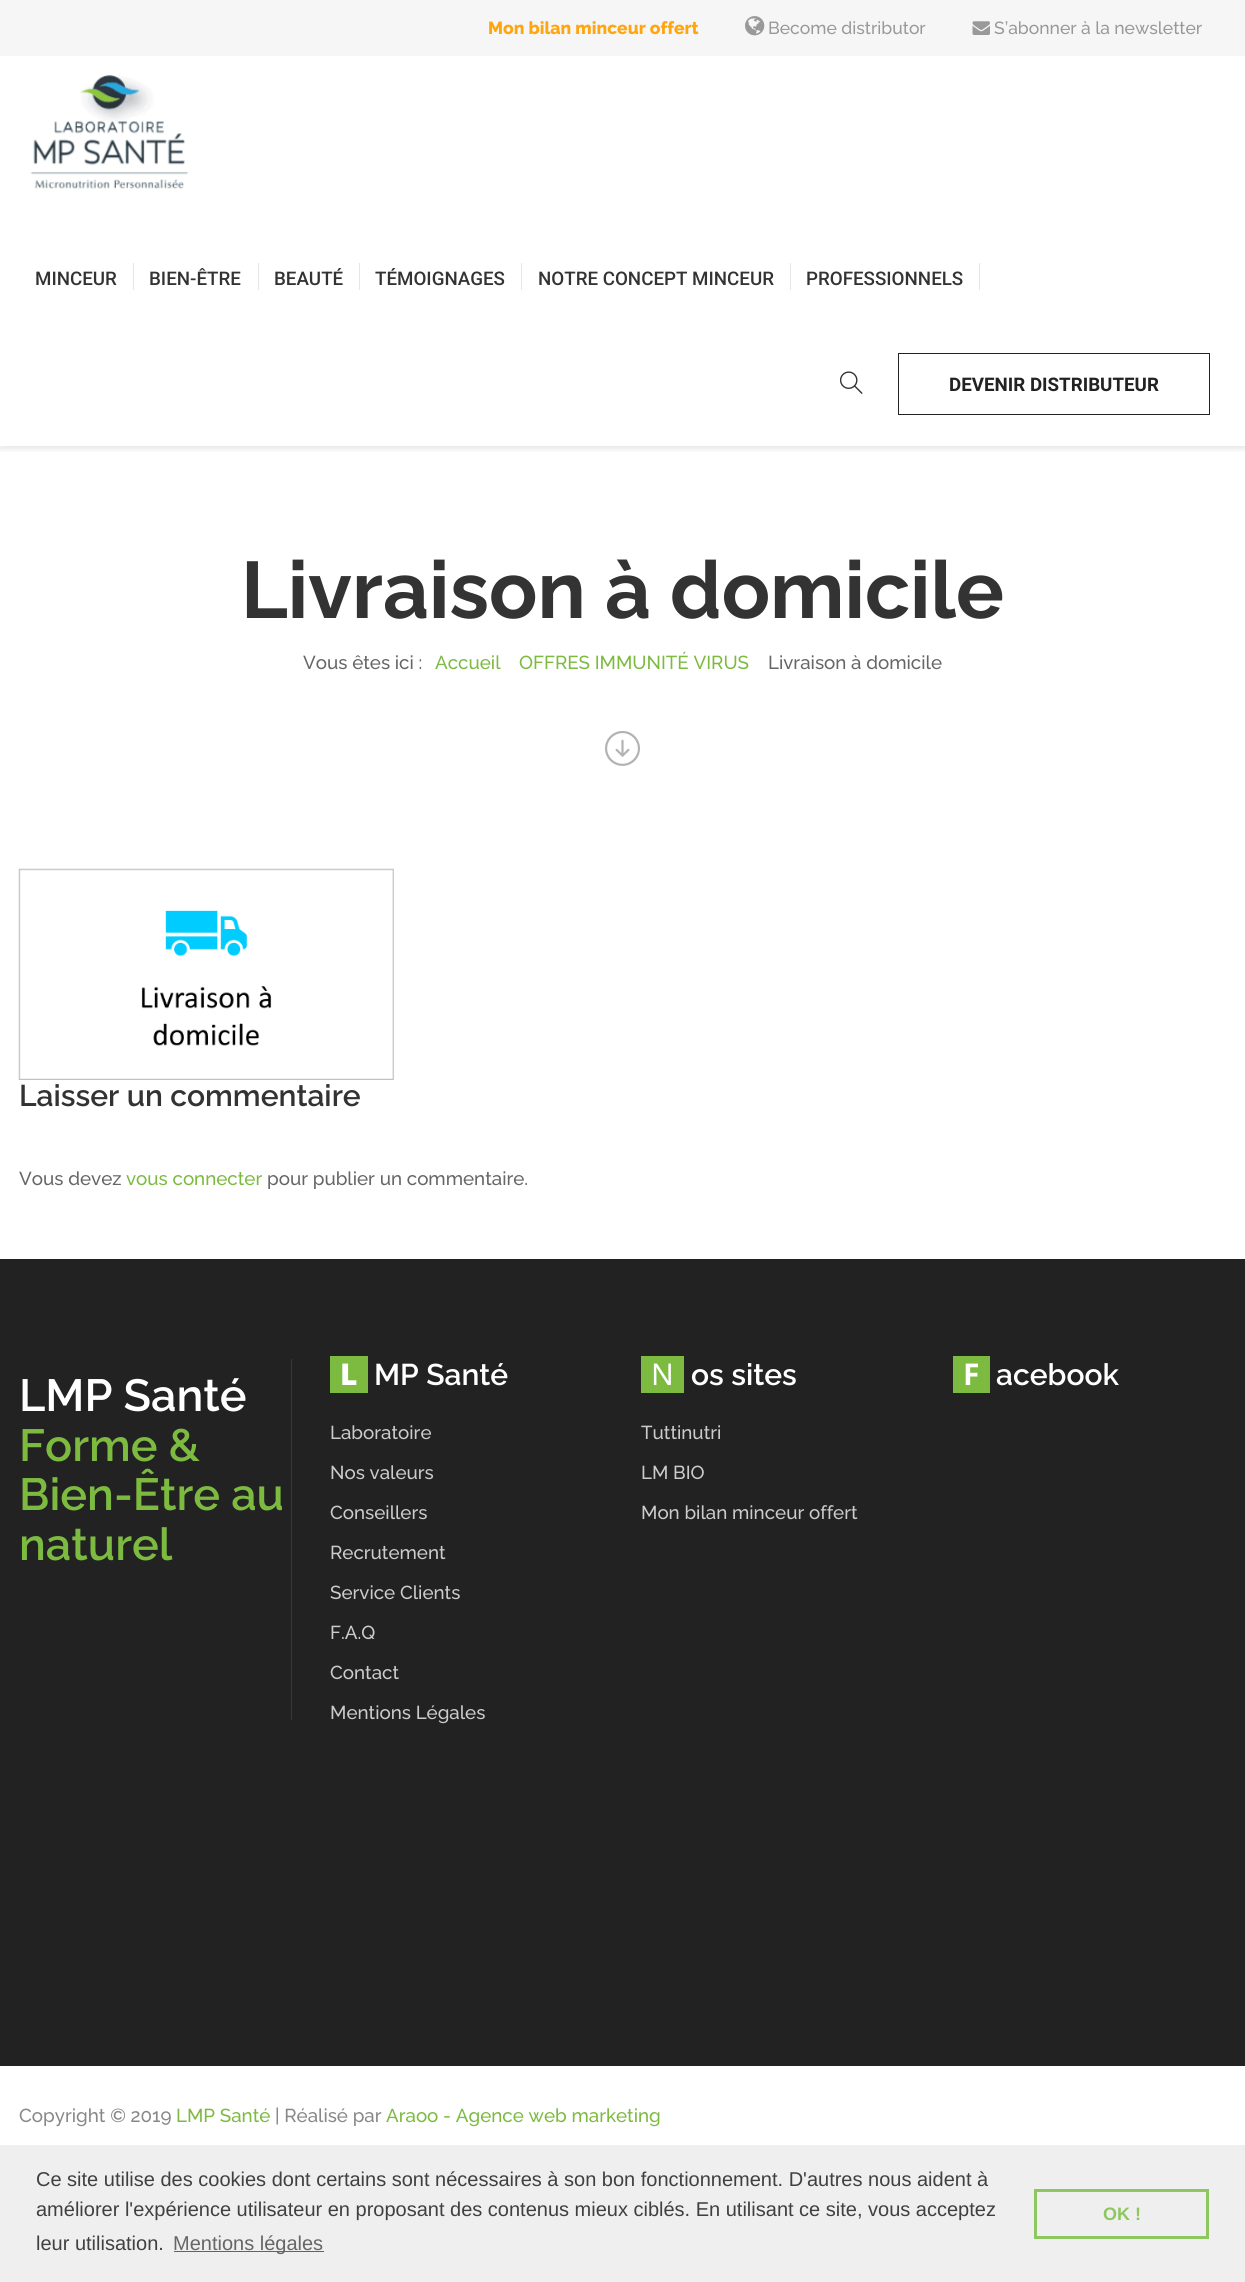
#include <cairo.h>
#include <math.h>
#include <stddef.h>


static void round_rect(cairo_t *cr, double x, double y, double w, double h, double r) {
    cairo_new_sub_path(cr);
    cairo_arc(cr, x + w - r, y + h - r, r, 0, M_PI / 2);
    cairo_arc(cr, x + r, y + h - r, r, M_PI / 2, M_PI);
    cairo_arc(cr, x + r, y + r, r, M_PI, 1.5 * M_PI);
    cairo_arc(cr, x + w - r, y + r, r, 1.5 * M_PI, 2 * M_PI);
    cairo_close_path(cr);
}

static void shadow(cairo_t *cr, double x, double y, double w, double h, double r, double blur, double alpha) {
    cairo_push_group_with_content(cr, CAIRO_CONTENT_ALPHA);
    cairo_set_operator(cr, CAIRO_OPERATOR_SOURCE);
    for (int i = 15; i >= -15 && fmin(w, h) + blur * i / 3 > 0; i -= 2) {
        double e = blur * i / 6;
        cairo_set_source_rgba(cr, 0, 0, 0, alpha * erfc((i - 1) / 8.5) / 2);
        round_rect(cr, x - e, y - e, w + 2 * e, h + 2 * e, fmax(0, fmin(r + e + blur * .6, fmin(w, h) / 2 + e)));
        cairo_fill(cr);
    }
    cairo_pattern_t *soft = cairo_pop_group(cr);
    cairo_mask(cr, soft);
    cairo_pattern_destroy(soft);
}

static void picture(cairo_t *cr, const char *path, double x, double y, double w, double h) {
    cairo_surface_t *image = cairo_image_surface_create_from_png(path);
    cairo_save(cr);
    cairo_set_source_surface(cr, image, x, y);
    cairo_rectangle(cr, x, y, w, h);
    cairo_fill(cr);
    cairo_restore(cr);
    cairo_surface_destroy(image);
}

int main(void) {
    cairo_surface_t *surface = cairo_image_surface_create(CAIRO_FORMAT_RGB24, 1245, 2282);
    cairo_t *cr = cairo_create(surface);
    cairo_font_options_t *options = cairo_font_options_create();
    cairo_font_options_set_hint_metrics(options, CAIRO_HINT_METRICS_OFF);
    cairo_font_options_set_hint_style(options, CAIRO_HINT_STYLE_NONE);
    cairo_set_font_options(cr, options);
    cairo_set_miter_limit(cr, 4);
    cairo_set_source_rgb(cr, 1, 1, 1);
    cairo_paint(cr);
    cairo_set_source_rgb(cr, 0.961, 0.961, 0.961);
    cairo_rectangle(cr, 0, 0, 1245, 56);
    cairo_fill(cr);
    cairo_select_font_face(cr, "Raleway ExtraBold", CAIRO_FONT_SLANT_NORMAL, CAIRO_FONT_WEIGHT_NORMAL);
    cairo_set_font_size(cr, 17.5);
    cairo_set_source_rgb(cr, 1, 0.651, 0.055);
    cairo_move_to(cr, 488, 34);
    cairo_show_text(cr, "Mon bilan minceur offert");
    picture(cr, "img1.png", 745, 16, 20, 20);
    cairo_select_font_face(cr, "Raleway Medium", CAIRO_FONT_SLANT_NORMAL, CAIRO_FONT_WEIGHT_NORMAL);
    cairo_set_source_rgb(cr, 0.6, 0.6, 0.6);
    cairo_move_to(cr, 768, 34);
    cairo_show_text(cr, "Become distributor");
    picture(cr, "img2.png", 972, 21, 18, 14);
    cairo_move_to(cr, 994, 34);
    cairo_show_text(cr, "S’abonner à la newsletter");
    cairo_save(cr);
    cairo_rectangle(cr, 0, 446, 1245, 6);
    cairo_clip(cr);
    cairo_set_source_rgb(cr, 0, 0, 0);
    shadow(cr, 0, 59, 1245, 390, 0, 3, 0.1);
    cairo_restore(cr);
    picture(cr, "img3.png", 30, 75, 158, 114);
    cairo_select_font_face(cr, "Roboto Medium", CAIRO_FONT_SLANT_NORMAL, CAIRO_FONT_WEIGHT_NORMAL);
    cairo_set_font_size(cr, 18.75);
    cairo_set_source_rgb(cr, 0.2, 0.2, 0.2);
    cairo_move_to(cr, 35, 285);
    cairo_show_text(cr, "MINCEUR");
    cairo_set_source_rgb(cr, 0.902, 0.902, 0.902);
    cairo_rectangle(cr, 133, 263, 1, 27);
    cairo_fill(cr);
    cairo_set_source_rgb(cr, 0.2, 0.2, 0.2);
    cairo_move_to(cr, 149, 285);
    cairo_show_text(cr, "BIEN-ÊTRE");
    cairo_set_source_rgb(cr, 0.902, 0.902, 0.902);
    cairo_rectangle(cr, 258, 263, 1, 27);
    cairo_fill(cr);
    cairo_set_source_rgb(cr, 0.2, 0.2, 0.2);
    cairo_move_to(cr, 274, 285);
    cairo_show_text(cr, "BEAUTÉ");
    cairo_set_source_rgb(cr, 0.902, 0.902, 0.902);
    cairo_rectangle(cr, 359, 263, 1, 27);
    cairo_fill(cr);
    cairo_set_source_rgb(cr, 0.2, 0.2, 0.2);
    cairo_move_to(cr, 375, 285);
    cairo_show_text(cr, "TÉMOIGNAGES");
    cairo_set_source_rgb(cr, 0.902, 0.902, 0.902);
    cairo_rectangle(cr, 521, 263, 1, 27);
    cairo_fill(cr);
    cairo_set_source_rgb(cr, 0.2, 0.2, 0.2);
    cairo_move_to(cr, 538, 285);
    cairo_show_text(cr, "NOTRE CONCEPT MINCEUR");
    cairo_set_source_rgb(cr, 0.902, 0.902, 0.902);
    cairo_rectangle(cr, 790, 263, 1, 27);
    cairo_fill(cr);
    cairo_set_source_rgb(cr, 0.2, 0.2, 0.2);
    cairo_move_to(cr, 806, 285);
    cairo_show_text(cr, "PROFESSIONNELS");
    cairo_set_source_rgb(cr, 0.902, 0.902, 0.902);
    cairo_rectangle(cr, 979, 263, 1, 27);
    cairo_fill(cr);
    picture(cr, "img4.png", 839, 371, 24, 23);
    cairo_rectangle(cr, 898.5, 353.5, 311, 61);
    cairo_set_source_rgb(cr, 0.133, 0.133, 0.133);
    cairo_set_line_width(cr, 1);
    cairo_stroke(cr);
    cairo_select_font_face(cr, "Roboto", CAIRO_FONT_SLANT_NORMAL, CAIRO_FONT_WEIGHT_BOLD);
    cairo_move_to(cr, 949, 391);
    cairo_show_text(cr, "DEVENIR DISTRIBUTEUR");
    cairo_select_font_face(cr, "Raleway", CAIRO_FONT_SLANT_NORMAL, CAIRO_FONT_WEIGHT_BOLD);
    cairo_set_font_size(cr, 80);
    cairo_set_source_rgb(cr, 0.2, 0.2, 0.2);
    cairo_move_to(cr, 241, 618);
    cairo_show_text(cr, "Livraison à domicile");
    cairo_select_font_face(cr, "Raleway Medium", CAIRO_FONT_SLANT_NORMAL, CAIRO_FONT_WEIGHT_NORMAL);
    cairo_set_font_size(cr, 18.75);
    cairo_set_source_rgb(cr, 0.4, 0.4, 0.4);
    cairo_move_to(cr, 303, 669);
    cairo_show_text(cr, "Vous êtes ici :");
    cairo_set_source_rgb(cr, 0.486, 0.729, 0.251);
    cairo_move_to(cr, 435, 669);
    cairo_show_text(cr, "Accueil");
    cairo_move_to(cr, 519, 669);
    cairo_show_text(cr, "OFFRES IMMUNITÉ VIRUS");
    cairo_set_source_rgb(cr, 0.4, 0.4, 0.4);
    cairo_move_to(cr, 768, 669);
    cairo_show_text(cr, "Livraison à domicile");
    picture(cr, "img5.png", 605, 731, 35, 35);
    picture(cr, "img6.png", 18, 868, 376, 212);
    cairo_select_font_face(cr, "Raleway SemiBold", CAIRO_FONT_SLANT_NORMAL, CAIRO_FONT_WEIGHT_NORMAL);
    cairo_set_font_size(cr, 30);
    cairo_set_source_rgb(cr, 0.2, 0.2, 0.2);
    cairo_move_to(cr, 19, 1106);
    cairo_show_text(cr, "Laisser un commentaire");
    cairo_select_font_face(cr, "Raleway Medium", CAIRO_FONT_SLANT_NORMAL, CAIRO_FONT_WEIGHT_NORMAL);
    cairo_set_font_size(cr, 18.75);
    cairo_set_source_rgb(cr, 0.4, 0.4, 0.4);
    cairo_move_to(cr, 19, 1185);
    cairo_show_text(cr, "Vous devez");
    cairo_set_source_rgb(cr, 0.486, 0.729, 0.251);
    cairo_move_to(cr, 126, 1185);
    cairo_show_text(cr, "vous connecter");
    cairo_set_source_rgb(cr, 0.4, 0.4, 0.4);
    cairo_move_to(cr, 267, 1185);
    cairo_show_text(cr, "pour publier un commentaire.");
    cairo_set_source_rgb(cr, 0.133, 0.133, 0.133);
    cairo_rectangle(cr, 0, 1259, 1245, 807);
    cairo_fill(cr);
    cairo_set_source_rgb(cr, 0.486, 0.729, 0.251);
    cairo_rectangle(cr, 330, 1356, 38, 37);
    cairo_fill(cr);
    cairo_select_font_face(cr, "Noto Sans Black", CAIRO_FONT_SLANT_NORMAL, CAIRO_FONT_WEIGHT_NORMAL);
    cairo_set_font_size(cr, 30);
    cairo_set_source_rgb(cr, 1, 1, 1);
    cairo_move_to(cr, 340, 1385);
    cairo_show_text(cr, "L");
    cairo_select_font_face(cr, "Raleway SemiBold", CAIRO_FONT_SLANT_NORMAL, CAIRO_FONT_WEIGHT_NORMAL);
    cairo_move_to(cr, 374, 1385);
    cairo_show_text(cr, "MP Santé");
    cairo_select_font_face(cr, "Raleway Medium", CAIRO_FONT_SLANT_NORMAL, CAIRO_FONT_WEIGHT_NORMAL);
    cairo_set_font_size(cr, 18.75);
    cairo_set_source_rgb(cr, 0.8, 0.8, 0.8);
    cairo_move_to(cr, 330, 1439);
    cairo_show_text(cr, "Laboratoire");
    cairo_move_to(cr, 330, 1479);
    cairo_show_text(cr, "Nos valeurs");
    cairo_move_to(cr, 330, 1519);
    cairo_show_text(cr, "Conseillers");
    cairo_move_to(cr, 330, 1559);
    cairo_show_text(cr, "Recrutement");
    cairo_move_to(cr, 330, 1599);
    cairo_show_text(cr, "Service Clients");
    cairo_move_to(cr, 330, 1639);
    cairo_show_text(cr, "F.A.Q");
    cairo_move_to(cr, 330, 1679);
    cairo_show_text(cr, "Contact");
    cairo_move_to(cr, 330, 1719);
    cairo_show_text(cr, "Mentions Légales");
    cairo_set_source_rgb(cr, 0.486, 0.729, 0.251);
    cairo_rectangle(cr, 641, 1356, 43, 37);
    cairo_fill(cr);
    cairo_select_font_face(cr, "Noto Sans", CAIRO_FONT_SLANT_NORMAL, CAIRO_FONT_WEIGHT_NORMAL);
    cairo_set_font_size(cr, 30);
    cairo_set_source_rgb(cr, 1, 1, 1);
    cairo_move_to(cr, 651, 1385);
    cairo_show_text(cr, "N");
    cairo_select_font_face(cr, "Raleway SemiBold", CAIRO_FONT_SLANT_NORMAL, CAIRO_FONT_WEIGHT_NORMAL);
    cairo_move_to(cr, 691, 1385);
    cairo_show_text(cr, "os sites");
    cairo_select_font_face(cr, "Raleway Medium", CAIRO_FONT_SLANT_NORMAL, CAIRO_FONT_WEIGHT_NORMAL);
    cairo_set_font_size(cr, 18.75);
    cairo_set_source_rgb(cr, 0.8, 0.8, 0.8);
    cairo_move_to(cr, 641, 1439);
    cairo_show_text(cr, "Tuttinutri");
    cairo_move_to(cr, 641, 1479);
    cairo_show_text(cr, "LM BIO");
    cairo_move_to(cr, 641, 1519);
    cairo_show_text(cr, "Mon bilan minceur offert");
    cairo_set_source_rgb(cr, 0.486, 0.729, 0.251);
    cairo_rectangle(cr, 953, 1356, 37, 37);
    cairo_fill(cr);
    cairo_select_font_face(cr, "Noto Sans", CAIRO_FONT_SLANT_NORMAL, CAIRO_FONT_WEIGHT_BOLD);
    cairo_set_font_size(cr, 30);
    cairo_set_source_rgb(cr, 1, 1, 1);
    cairo_move_to(cr, 963, 1385);
    cairo_show_text(cr, "F");
    cairo_select_font_face(cr, "Raleway SemiBold", CAIRO_FONT_SLANT_NORMAL, CAIRO_FONT_WEIGHT_NORMAL);
    cairo_move_to(cr, 996, 1385);
    cairo_show_text(cr, "acebook");
    cairo_set_source_rgb(cr, 0.22, 0.22, 0.22);
    cairo_rectangle(cr, 291, 1359, 1, 361);
    cairo_fill(cr);
    cairo_set_font_size(cr, 45);
    cairo_set_source_rgb(cr, 1, 1, 1);
    cairo_move_to(cr, 19, 1411);
    cairo_show_text(cr, "LMP Santé");
    cairo_set_source_rgb(cr, 0.486, 0.729, 0.251);
    cairo_move_to(cr, 19, 1461);
    cairo_show_text(cr, "Forme &");
    cairo_move_to(cr, 19, 1510);
    cairo_show_text(cr, "Bien-Être au");
    cairo_move_to(cr, 19, 1560);
    cairo_show_text(cr, "naturel");
    cairo_select_font_face(cr, "Raleway Medium", CAIRO_FONT_SLANT_NORMAL, CAIRO_FONT_WEIGHT_NORMAL);
    cairo_set_font_size(cr, 18.75);
    cairo_set_source_rgb(cr, 0.533, 0.533, 0.533);
    cairo_move_to(cr, 19, 2122);
    cairo_show_text(cr, "Copyright © 2019");
    cairo_set_source_rgb(cr, 0.486, 0.729, 0.251);
    cairo_move_to(cr, 176, 2122);
    cairo_show_text(cr, "LMP Santé");
    cairo_set_source_rgb(cr, 0.533, 0.533, 0.533);
    cairo_move_to(cr, 275, 2122);
    cairo_show_text(cr, "| Réalisé par");
    cairo_set_source_rgb(cr, 0.486, 0.729, 0.251);
    cairo_move_to(cr, 386, 2122);
    cairo_show_text(cr, "Araoo - Agence web marketing");
    cairo_set_source_rgb(cr, 0.937, 0.937, 0.937);
    cairo_rectangle(cr, 0, 2145, 1245, 137);
    cairo_fill(cr);
    cairo_select_font_face(cr, "Liberation Sans", CAIRO_FONT_SLANT_NORMAL, CAIRO_FONT_WEIGHT_NORMAL);
    cairo_set_font_size(cr, 20);
    cairo_set_source_rgb(cr, 0.251, 0.251, 0.251);
    cairo_move_to(cr, 36, 2186);
    cairo_show_text(cr, "Ce site utilise des cookies dont certains sont nécessaires à son bon fonctionnement. D'autres nous aident à");
    cairo_move_to(cr, 36, 2216);
    cairo_show_text(cr, "améliorer l'expérience utilisateur en proposant des contenus mieux ciblés. En utilisant ce site, vous acceptez");
    cairo_move_to(cr, 36, 2250);
    cairo_show_text(cr, "leur utilisation.");
    cairo_set_source_rgb(cr, 0.388, 0.388, 0.388);
    cairo_rectangle(cr, 174, 2251, 150, 1);
    cairo_fill(cr);
    cairo_set_source_rgb(cr, 0.4, 0.4, 0.4);
    cairo_move_to(cr, 173, 2250);
    cairo_show_text(cr, "Mentions légales");
    cairo_rectangle(cr, 1035.5, 2190.5, 172, 47);
    cairo_set_source_rgb(cr, 0.557, 0.78, 0.376);
    cairo_set_line_width(cr, 3);
    cairo_stroke(cr);
    cairo_select_font_face(cr, "Liberation Sans", CAIRO_FONT_SLANT_NORMAL, CAIRO_FONT_WEIGHT_BOLD);
    cairo_set_font_size(cr, 18);
    cairo_move_to(cr, 1103, 2220);
    cairo_show_text(cr, "OK !");
    cairo_surface_write_to_png(surface, "page.png");
    cairo_font_options_destroy(options);
    cairo_destroy(cr);
    cairo_surface_destroy(surface);
    return 0;
}
